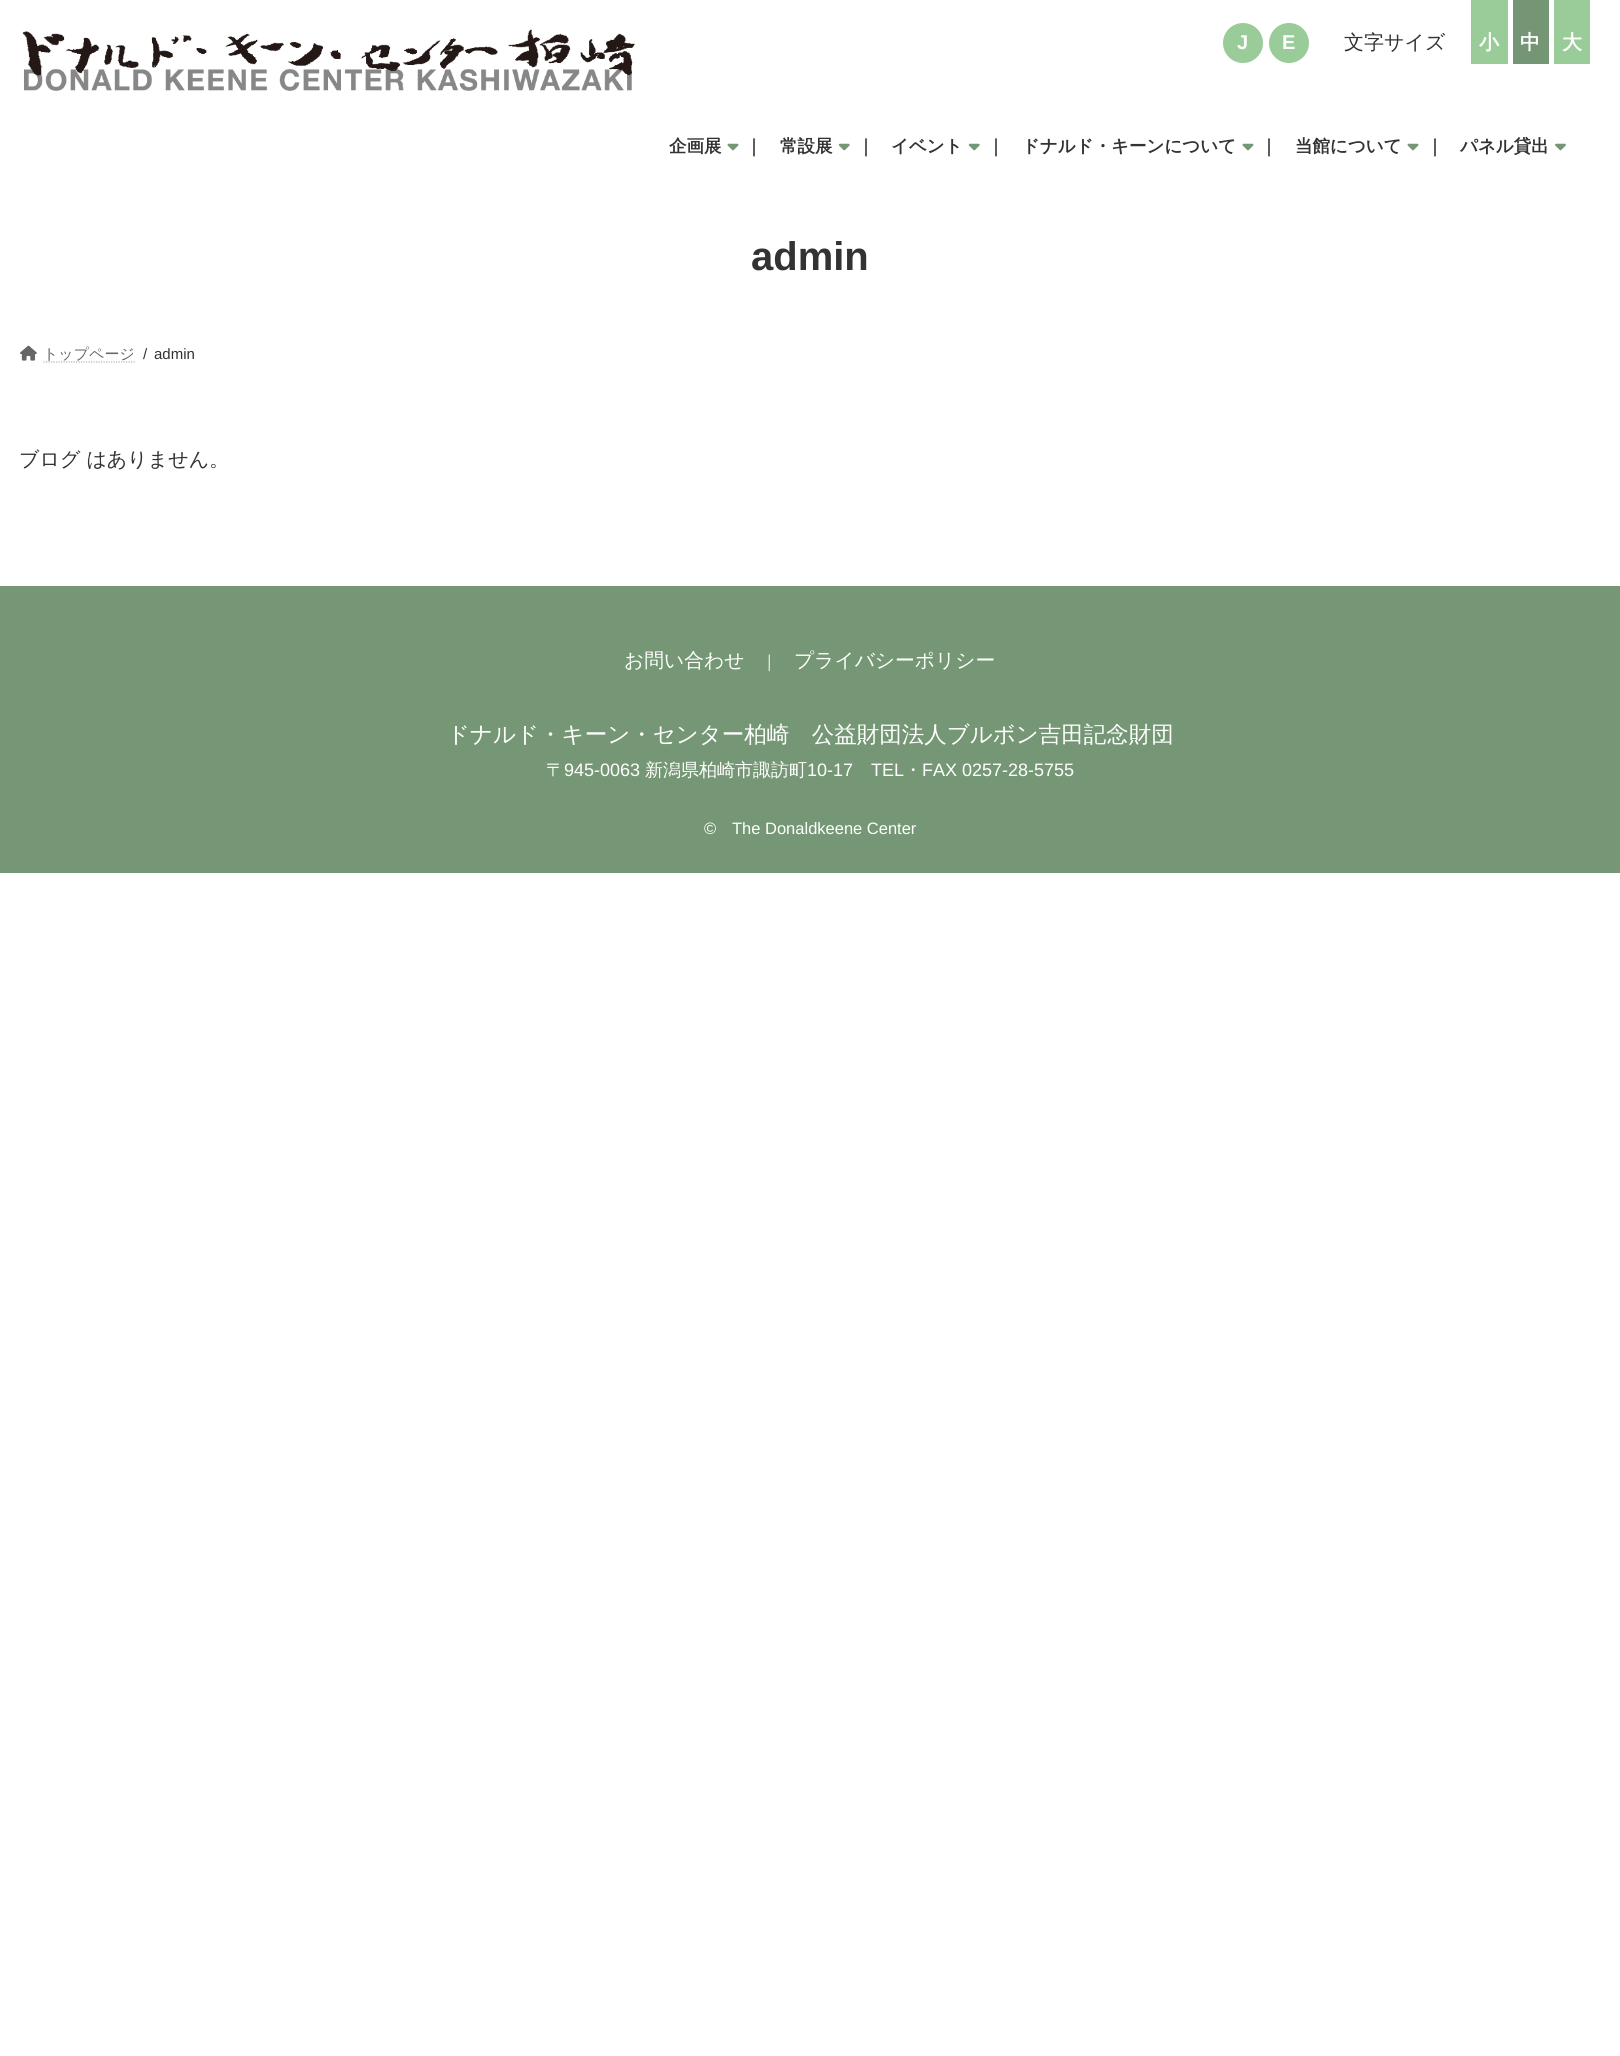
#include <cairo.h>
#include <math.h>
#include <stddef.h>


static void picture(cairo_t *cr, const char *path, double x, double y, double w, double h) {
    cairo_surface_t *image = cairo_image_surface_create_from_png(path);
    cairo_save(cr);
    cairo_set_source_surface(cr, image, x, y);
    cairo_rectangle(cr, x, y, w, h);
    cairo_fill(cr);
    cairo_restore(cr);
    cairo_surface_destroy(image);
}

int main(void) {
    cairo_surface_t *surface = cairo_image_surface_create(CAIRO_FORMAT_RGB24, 1620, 2056);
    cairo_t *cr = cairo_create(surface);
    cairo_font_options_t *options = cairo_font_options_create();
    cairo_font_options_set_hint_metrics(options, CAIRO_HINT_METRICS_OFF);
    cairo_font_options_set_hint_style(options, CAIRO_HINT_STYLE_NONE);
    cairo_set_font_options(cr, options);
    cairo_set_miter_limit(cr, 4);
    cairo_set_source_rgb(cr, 1, 1, 1);
    cairo_paint(cr);
    cairo_set_source_rgb(cr, 0.6, 0.8, 0.6);
    cairo_arc(cr, 1243, 43, 20, 0, 2 * M_PI);
    cairo_fill(cr);
    cairo_select_font_face(cr, "Liberation Sans", CAIRO_FONT_SLANT_NORMAL, CAIRO_FONT_WEIGHT_BOLD);
    cairo_set_font_size(cr, 20);
    cairo_set_source_rgb(cr, 1, 1, 1);
    cairo_move_to(cr, 1237, 49);
    cairo_show_text(cr, "J");
    cairo_set_source_rgb(cr, 0.6, 0.8, 0.6);
    cairo_new_path(cr);
    cairo_arc(cr, 1289, 43, 20, 0, 2 * M_PI);
    cairo_fill(cr);
    cairo_set_source_rgb(cr, 1, 1, 1);
    cairo_move_to(cr, 1282, 49);
    cairo_show_text(cr, "E");
    cairo_select_font_face(cr, "WenQuanYi Zen Hei Medium", CAIRO_FONT_SLANT_NORMAL, CAIRO_FONT_WEIGHT_NORMAL);
    cairo_set_source_rgb(cr, 0.2, 0.2, 0.2);
    cairo_move_to(cr, 1344, 49);
    cairo_show_text(cr, "文字サイズ");
    cairo_set_source_rgb(cr, 0.6, 0.8, 0.6);
    cairo_rectangle(cr, 1471, 0, 37, 64);
    cairo_fill(cr);
    cairo_select_font_face(cr, "WenQuanYi Zen Hei", CAIRO_FONT_SLANT_NORMAL, CAIRO_FONT_WEIGHT_BOLD);
    cairo_set_source_rgb(cr, 1, 1, 1);
    cairo_move_to(cr, 1479, 49);
    cairo_show_text(cr, "小");
    cairo_set_source_rgb(cr, 0.459, 0.588, 0.459);
    cairo_rectangle(cr, 1513, 0, 36, 64);
    cairo_fill(cr);
    cairo_set_source_rgb(cr, 1, 1, 1);
    cairo_move_to(cr, 1520, 49);
    cairo_show_text(cr, "中");
    cairo_set_source_rgb(cr, 0.6, 0.8, 0.6);
    cairo_rectangle(cr, 1554, 0, 36, 64);
    cairo_fill(cr);
    cairo_set_source_rgb(cr, 1, 1, 1);
    cairo_move_to(cr, 1562, 49);
    cairo_show_text(cr, "大");
    picture(cr, "img1.png", 22, 29, 613, 62);
    cairo_set_font_size(cr, 17.5);
    cairo_set_source_rgb(cr, 0.2, 0.2, 0.2);
    cairo_move_to(cr, 669, 152);
    cairo_show_text(cr, "企画展");
    picture(cr, "img2.png", 727, 143, 12, 8);
    cairo_move_to(cr, 745, 152);
    cairo_show_text(cr, "｜");
    cairo_move_to(cr, 780, 152);
    cairo_show_text(cr, "常設展");
    picture(cr, "img3.png", 838, 143, 12, 8);
    cairo_move_to(cr, 857, 152);
    cairo_show_text(cr, "｜");
    cairo_move_to(cr, 891, 152);
    cairo_show_text(cr, "イベント");
    picture(cr, "img3.png", 968, 143, 12, 8);
    cairo_move_to(cr, 987, 152);
    cairo_show_text(cr, "｜");
    cairo_move_to(cr, 1022, 152);
    cairo_show_text(cr, "ドナルド・キーンについて");
    picture(cr, "img2.png", 1242, 143, 12, 8);
    cairo_move_to(cr, 1260, 152);
    cairo_show_text(cr, "｜");
    cairo_move_to(cr, 1295, 152);
    cairo_show_text(cr, "当館について");
    picture(cr, "img2.png", 1407, 143, 12, 8);
    cairo_move_to(cr, 1426, 152);
    cairo_show_text(cr, "｜");
    cairo_move_to(cr, 1460, 152);
    cairo_show_text(cr, "パネル貸出");
    picture(cr, "img4.png", 1555, 143, 11, 8);
    cairo_select_font_face(cr, "Liberation Sans", CAIRO_FONT_SLANT_NORMAL, CAIRO_FONT_WEIGHT_BOLD);
    cairo_set_font_size(cr, 40);
    cairo_move_to(cr, 751, 270);
    cairo_show_text(cr, "admin");
    picture(cr, "img5.png", 20, 345, 17, 16);
    cairo_select_font_face(cr, "WenQuanYi Zen Hei Medium", CAIRO_FONT_SLANT_NORMAL, CAIRO_FONT_WEIGHT_NORMAL);
    cairo_set_font_size(cr, 15);
    cairo_set_source_rgb(cr, 0.4, 0.4, 0.4);
    cairo_move_to(cr, 43, 359);
    cairo_show_text(cr, "トップページ");
    cairo_new_path(cr);
    cairo_move_to(cr, 43.5, 362);
    cairo_line_to(cr, 135.5, 362);
    cairo_set_source_rgb(cr, 0.702, 0.702, 0.702);
    cairo_set_line_width(cr, 1.2);
    cairo_set_dash(cr, (double[]){1.25, 1.25}, 2, 0);
    cairo_stroke(cr);
    cairo_select_font_face(cr, "Liberation Sans", CAIRO_FONT_SLANT_NORMAL, CAIRO_FONT_WEIGHT_NORMAL);
    cairo_set_source_rgb(cr, 0.2, 0.2, 0.2);
    cairo_move_to(cr, 143, 359);
    cairo_show_text(cr, "/");
    cairo_move_to(cr, 154, 359);
    cairo_show_text(cr, "admin");
    cairo_select_font_face(cr, "WenQuanYi Zen Hei Medium", CAIRO_FONT_SLANT_NORMAL, CAIRO_FONT_WEIGHT_NORMAL);
    cairo_set_font_size(cr, 20);
    cairo_move_to(cr, 19, 466);
    cairo_show_text(cr, "ブログ はありません。");
    cairo_set_source_rgb(cr, 0.459, 0.592, 0.459);
    cairo_rectangle(cr, 0, 586, 1620, 287);
    cairo_fill(cr);
    cairo_set_font_size(cr, 19.75);
    cairo_set_source_rgb(cr, 1, 1, 1);
    cairo_move_to(cr, 624, 667);
    cairo_show_text(cr, "お問い合わせ");
    cairo_set_font_size(cr, 16.5);
    cairo_move_to(cr, 761, 667);
    cairo_show_text(cr, "｜");
    cairo_set_font_size(cr, 19.75);
    cairo_move_to(cr, 794, 667);
    cairo_show_text(cr, "プライバシーポリシー");
    cairo_set_font_size(cr, 22.5);
    cairo_move_to(cr, 447, 742);
    cairo_show_text(cr, "ドナルド・キーン・センター柏崎　公益財団法人ブルボン吉田記念財団");
    cairo_set_font_size(cr, 18);
    cairo_move_to(cr, 546, 776);
    cairo_show_text(cr, "〒");
    cairo_select_font_face(cr, "Liberation Sans", CAIRO_FONT_SLANT_NORMAL, CAIRO_FONT_WEIGHT_NORMAL);
    cairo_move_to(cr, 564, 776);
    cairo_show_text(cr, "945-0063");
    cairo_select_font_face(cr, "WenQuanYi Zen Hei Medium", CAIRO_FONT_SLANT_NORMAL, CAIRO_FONT_WEIGHT_NORMAL);
    cairo_move_to(cr, 645, 776);
    cairo_show_text(cr, "新潟県柏崎市諏訪町");
    cairo_select_font_face(cr, "Liberation Sans", CAIRO_FONT_SLANT_NORMAL, CAIRO_FONT_WEIGHT_NORMAL);
    cairo_move_to(cr, 807, 776);
    cairo_show_text(cr, "10-17");
    cairo_move_to(cr, 871, 776);
    cairo_show_text(cr, "TEL");
    cairo_select_font_face(cr, "WenQuanYi Zen Hei Medium", CAIRO_FONT_SLANT_NORMAL, CAIRO_FONT_WEIGHT_NORMAL);
    cairo_move_to(cr, 904, 776);
    cairo_show_text(cr, "・");
    cairo_select_font_face(cr, "Liberation Sans", CAIRO_FONT_SLANT_NORMAL, CAIRO_FONT_WEIGHT_NORMAL);
    cairo_move_to(cr, 922, 776);
    cairo_show_text(cr, "FAX 0257-28-5755");
    cairo_set_font_size(cr, 16.5);
    cairo_move_to(cr, 704, 834);
    cairo_show_text(cr, "©");
    cairo_move_to(cr, 732, 834);
    cairo_show_text(cr, "The Donaldkeene Center");
    cairo_surface_write_to_png(surface, "page.png");
    cairo_font_options_destroy(options);
    cairo_destroy(cr);
    cairo_surface_destroy(surface);
    return 0;
}
